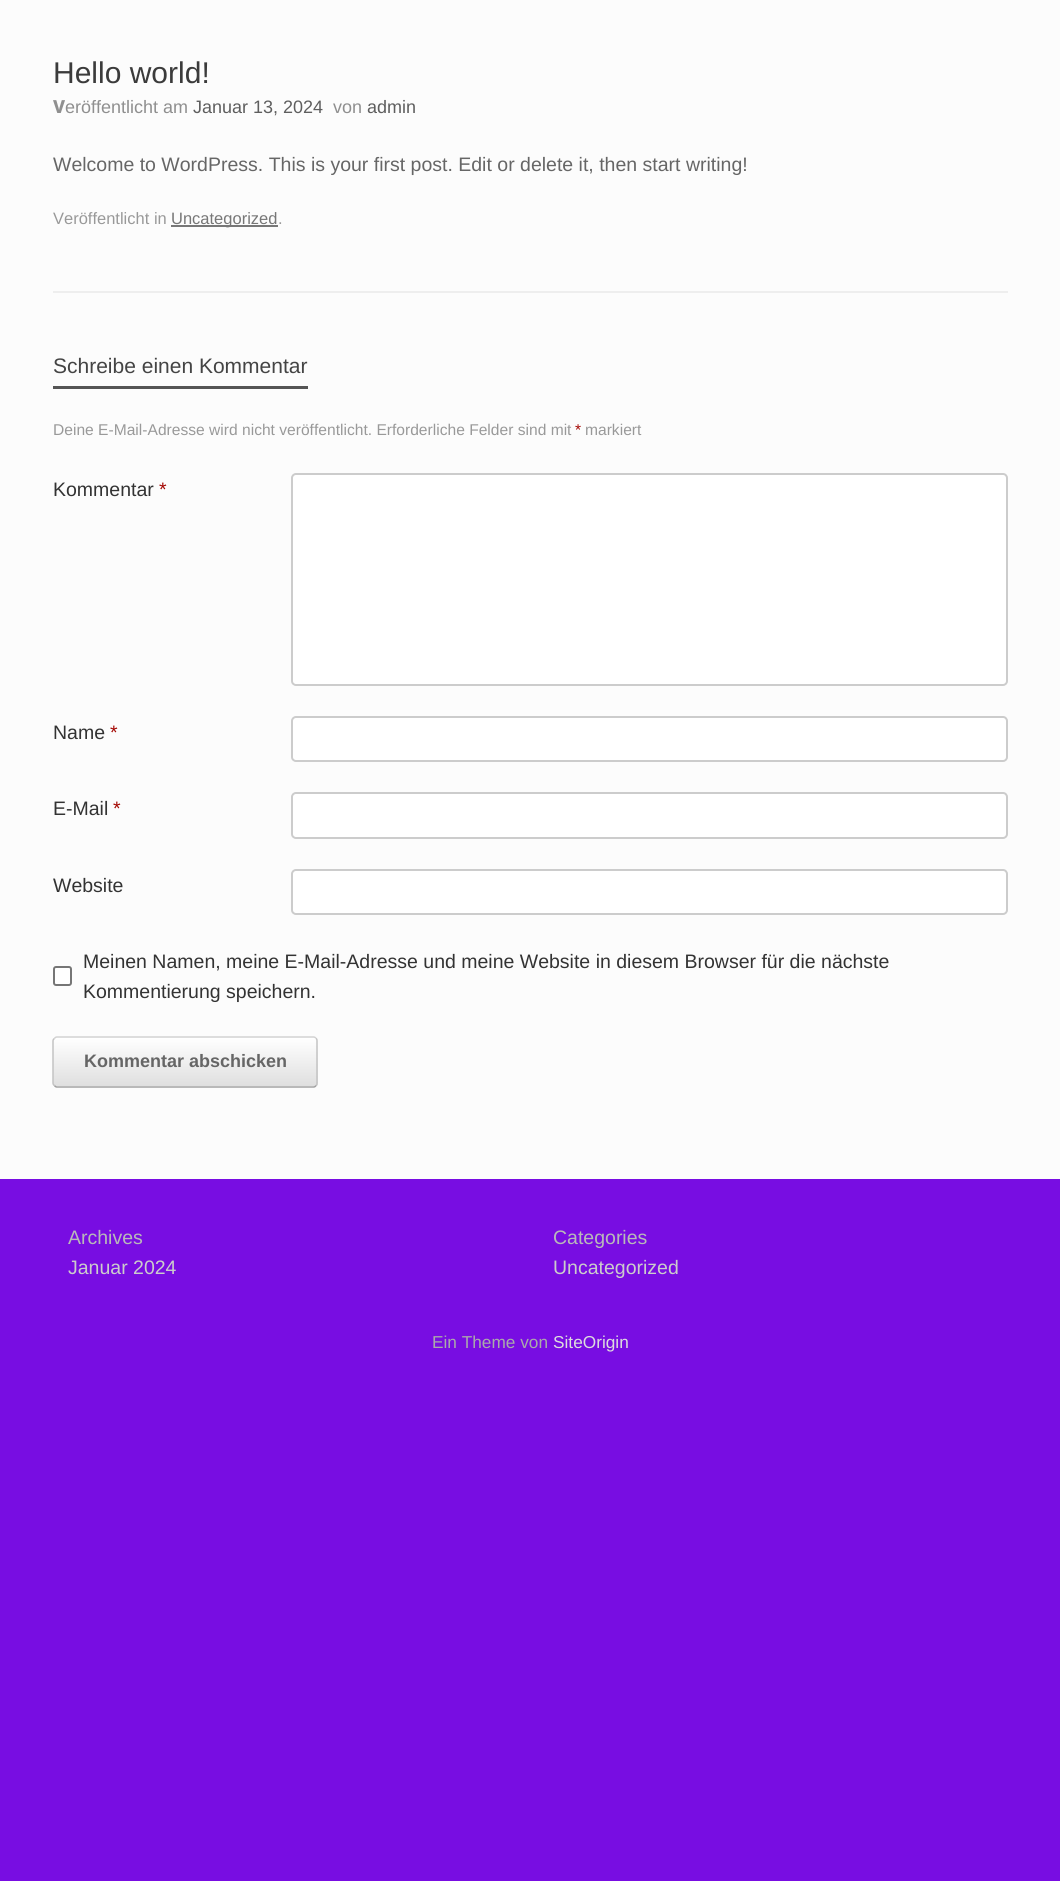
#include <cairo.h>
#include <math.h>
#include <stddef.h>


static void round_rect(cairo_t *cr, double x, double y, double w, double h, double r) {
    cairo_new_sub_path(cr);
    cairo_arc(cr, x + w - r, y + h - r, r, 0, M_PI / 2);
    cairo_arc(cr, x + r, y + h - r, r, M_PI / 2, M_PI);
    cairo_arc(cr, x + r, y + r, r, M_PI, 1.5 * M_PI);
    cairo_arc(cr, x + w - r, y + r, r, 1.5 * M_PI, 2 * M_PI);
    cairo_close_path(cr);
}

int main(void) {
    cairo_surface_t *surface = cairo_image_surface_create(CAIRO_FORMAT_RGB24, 1060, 1881);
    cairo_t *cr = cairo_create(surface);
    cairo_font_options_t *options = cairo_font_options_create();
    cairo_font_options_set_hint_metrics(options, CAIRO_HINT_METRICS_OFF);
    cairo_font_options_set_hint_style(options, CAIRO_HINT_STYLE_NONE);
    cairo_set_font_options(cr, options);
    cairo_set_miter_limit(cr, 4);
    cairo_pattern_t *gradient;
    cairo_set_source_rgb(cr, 0.471, 0.051, 0.886);
    cairo_paint(cr);
    cairo_set_source_rgb(cr, 0.988, 0.988, 0.988);
    cairo_rectangle(cr, 0, 0, 1060, 1179);
    cairo_fill(cr);
    cairo_set_source_rgb(cr, 0.933, 0.933, 0.933);
    cairo_rectangle(cr, 53, 291, 955, 2);
    cairo_fill(cr);
    cairo_select_font_face(cr, "Liberation Sans", CAIRO_FONT_SLANT_NORMAL, CAIRO_FONT_WEIGHT_NORMAL);
    cairo_set_font_size(cr, 30);
    cairo_set_source_rgb(cr, 0.231, 0.231, 0.231);
    cairo_move_to(cr, 53, 83);
    cairo_show_text(cr, "Hello world!");
    cairo_select_font_face(cr, "Noto Sans ExtraBold", CAIRO_FONT_SLANT_NORMAL, CAIRO_FONT_WEIGHT_NORMAL);
    cairo_set_font_size(cr, 18);
    cairo_set_source_rgb(cr, 0.561, 0.561, 0.561);
    cairo_move_to(cr, 53, 113);
    cairo_show_text(cr, "V");
    cairo_select_font_face(cr, "Liberation Sans", CAIRO_FONT_SLANT_NORMAL, CAIRO_FONT_WEIGHT_NORMAL);
    cairo_move_to(cr, 65, 113);
    cairo_show_text(cr, "eröffentlicht am");
    cairo_set_source_rgb(cr, 0.369, 0.369, 0.369);
    cairo_move_to(cr, 193, 113);
    cairo_show_text(cr, "Januar 13, 2024");
    cairo_set_source_rgb(cr, 0.561, 0.561, 0.561);
    cairo_move_to(cr, 333, 113);
    cairo_show_text(cr, "von");
    cairo_set_source_rgb(cr, 0.369, 0.369, 0.369);
    cairo_move_to(cr, 367, 113);
    cairo_show_text(cr, "admin");
    cairo_set_font_size(cr, 19.5);
    cairo_set_source_rgb(cr, 0.4, 0.4, 0.4);
    cairo_move_to(cr, 53, 171);
    cairo_show_text(cr, "Welcome to WordPress. This is your first post. Edit or delete it, then start writing!");
    cairo_set_font_size(cr, 16.5);
    cairo_set_source_rgb(cr, 0.6, 0.6, 0.6);
    cairo_move_to(cr, 53, 224);
    cairo_show_text(cr, "Veröffentlicht in");
    cairo_set_source_rgb(cr, 0.467, 0.467, 0.467);
    cairo_rectangle(cr, 171, 225, 107, 2);
    cairo_fill(cr);
    cairo_move_to(cr, 171, 224);
    cairo_show_text(cr, "Uncategorized");
    cairo_set_source_rgb(cr, 0.6, 0.6, 0.6);
    cairo_move_to(cr, 278, 224);
    cairo_show_text(cr, ".");
    cairo_set_source_rgb(cr, 0.333, 0.333, 0.333);
    cairo_rectangle(cr, 53, 386, 255, 3);
    cairo_fill(cr);
    cairo_set_font_size(cr, 21);
    cairo_set_source_rgb(cr, 0.267, 0.267, 0.267);
    cairo_move_to(cr, 53, 373);
    cairo_show_text(cr, "Schreibe einen Kommentar");
    cairo_set_font_size(cr, 15.6);
    cairo_set_source_rgb(cr, 0.6, 0.6, 0.6);
    cairo_move_to(cr, 53, 435);
    cairo_show_text(cr, "Deine E-Mail-Adresse wird nicht veröffentlicht. Erforderliche Felder sind mit");
    cairo_set_source_rgb(cr, 0.643, 0.031, 0.008);
    cairo_move_to(cr, 575, 435);
    cairo_show_text(cr, "*");
    cairo_set_source_rgb(cr, 0.6, 0.6, 0.6);
    cairo_move_to(cr, 585, 435);
    cairo_show_text(cr, "markiert");
    cairo_set_font_size(cr, 19.5);
    cairo_set_source_rgb(cr, 0.2, 0.2, 0.2);
    cairo_move_to(cr, 53, 496);
    cairo_show_text(cr, "Kommentar");
    cairo_set_source_rgb(cr, 0.643, 0.031, 0.008);
    cairo_move_to(cr, 159, 496);
    cairo_show_text(cr, "*");
    cairo_set_source_rgb(cr, 1, 1, 1);
    round_rect(cr, 292, 474, 715, 211, 4);
    cairo_fill_preserve(cr);
    cairo_set_source_rgb(cr, 0.8, 0.8, 0.8);
    cairo_stroke(cr);
    cairo_set_source_rgb(cr, 0.2, 0.2, 0.2);
    cairo_move_to(cr, 53, 739);
    cairo_show_text(cr, "Name");
    cairo_set_source_rgb(cr, 0.643, 0.031, 0.008);
    cairo_move_to(cr, 110, 739);
    cairo_show_text(cr, "*");
    cairo_set_source_rgb(cr, 1, 1, 1);
    round_rect(cr, 292, 717, 715, 44, 4);
    cairo_fill_preserve(cr);
    cairo_set_source_rgb(cr, 0.8, 0.8, 0.8);
    cairo_stroke(cr);
    cairo_set_source_rgb(cr, 0.2, 0.2, 0.2);
    cairo_move_to(cr, 53, 815);
    cairo_show_text(cr, "E-Mail");
    cairo_set_source_rgb(cr, 0.643, 0.031, 0.008);
    cairo_move_to(cr, 113, 815);
    cairo_show_text(cr, "*");
    cairo_set_source_rgb(cr, 1, 1, 1);
    round_rect(cr, 292, 793, 715, 45, 4);
    cairo_fill_preserve(cr);
    cairo_set_source_rgb(cr, 0.8, 0.8, 0.8);
    cairo_stroke(cr);
    cairo_set_source_rgb(cr, 0.2, 0.2, 0.2);
    cairo_move_to(cr, 53, 892);
    cairo_show_text(cr, "Website");
    cairo_set_source_rgb(cr, 1, 1, 1);
    round_rect(cr, 292, 870, 715, 44, 4);
    cairo_fill_preserve(cr);
    cairo_set_source_rgb(cr, 0.8, 0.8, 0.8);
    cairo_stroke(cr);
    cairo_set_source_rgb(cr, 1, 1, 1);
    round_rect(cr, 54, 967, 17, 18, 2);
    cairo_fill_preserve(cr);
    cairo_set_source_rgb(cr, 0.463, 0.463, 0.463);
    cairo_stroke(cr);
    cairo_set_source_rgb(cr, 0.2, 0.2, 0.2);
    cairo_move_to(cr, 83, 968);
    cairo_show_text(cr, "Meinen Namen, meine E-Mail-Adresse und meine Website in diesem Browser für die nächste");
    cairo_move_to(cr, 83, 998);
    cairo_show_text(cr, "Kommentierung speichern.");
    cairo_save(cr);
    round_rect(cr, 53, 1037, 265, 51, 5);
    cairo_clip(cr);
    gradient = cairo_pattern_create_linear(54, 1086, 54, 1038);
    cairo_pattern_add_color_stop_rgba(gradient, 0, 0.875, 0.875, 0.875, 1);
    cairo_pattern_add_color_stop_rgba(gradient, 1, 1, 1, 1, 1);
    cairo_set_source(cr, gradient);
    cairo_pattern_destroy(gradient);
    cairo_rectangle(cr, 53, 1038, 265, 48);
    cairo_fill(cr);
    gradient = cairo_pattern_create_linear(54, 1134, 54, 1086);
    cairo_pattern_add_color_stop_rgba(gradient, 0, 0.875, 0.875, 0.875, 1);
    cairo_pattern_add_color_stop_rgba(gradient, 1, 1, 1, 1, 1);
    cairo_set_source(cr, gradient);
    cairo_pattern_destroy(gradient);
    cairo_rectangle(cr, 53, 1086, 265, 2);
    cairo_fill(cr);
    cairo_restore(cr);
    cairo_new_path(cr);
    cairo_move_to(cr, 54.5, 1038.5);
    cairo_curve_to(cr, 55, 1037.5, 56, 1037, 57, 1037);
    cairo_line_to(cr, 313.5, 1037);
    cairo_curve_to(cr, 314.5, 1037, 315.5, 1037.5, 316, 1038.5);
    cairo_set_source_rgb(cr, 0.824, 0.824, 0.824);
    cairo_set_line_width(cr, 1.5);
    cairo_stroke(cr);
    cairo_new_path(cr);
    cairo_move_to(cr, 316, 1038.5);
    cairo_curve_to(cr, 317, 1039, 317, 1040, 317, 1041);
    cairo_line_to(cr, 317, 1083);
    cairo_curve_to(cr, 317, 1084, 317, 1085, 316, 1085.5);
    cairo_set_source_rgb(cr, 0.765, 0.765, 0.765);
    cairo_stroke(cr);
    cairo_new_path(cr);
    cairo_move_to(cr, 316, 1085.5);
    cairo_curve_to(cr, 315.5, 1086.5, 314.5, 1087, 313.5, 1087);
    cairo_line_to(cr, 57, 1087);
    cairo_curve_to(cr, 56, 1087, 55, 1086.5, 54.5, 1085.5);
    cairo_set_source_rgb(cr, 0.624, 0.624, 0.624);
    cairo_stroke(cr);
    cairo_new_path(cr);
    cairo_move_to(cr, 54.5, 1085.5);
    cairo_curve_to(cr, 53.5, 1085, 53, 1084, 53, 1083);
    cairo_line_to(cr, 53, 1041);
    cairo_curve_to(cr, 53, 1040, 53.5, 1039, 54.5, 1038.5);
    cairo_set_source_rgb(cr, 0.765, 0.765, 0.765);
    cairo_stroke(cr);
    cairo_select_font_face(cr, "Liberation Sans", CAIRO_FONT_SLANT_NORMAL, CAIRO_FONT_WEIGHT_BOLD);
    cairo_set_font_size(cr, 18);
    cairo_set_source_rgb(cr, 0.4, 0.4, 0.4);
    cairo_move_to(cr, 84, 1067);
    cairo_show_text(cr, "Kommentar abschicken");
    cairo_select_font_face(cr, "Liberation Sans", CAIRO_FONT_SLANT_NORMAL, CAIRO_FONT_WEIGHT_NORMAL);
    cairo_set_font_size(cr, 19.5);
    cairo_set_source_rgb(cr, 0.725, 0.725, 0.725);
    cairo_move_to(cr, 68, 1244);
    cairo_show_text(cr, "Archives");
    cairo_set_source_rgb(cr, 0.8, 0.8, 0.8);
    cairo_move_to(cr, 68, 1274);
    cairo_show_text(cr, "Januar 2024");
    cairo_set_source_rgb(cr, 0.725, 0.725, 0.725);
    cairo_move_to(cr, 553, 1244);
    cairo_show_text(cr, "Categories");
    cairo_set_source_rgb(cr, 0.8, 0.8, 0.8);
    cairo_move_to(cr, 553, 1274);
    cairo_show_text(cr, "Uncategorized");
    cairo_set_font_size(cr, 17.25);
    cairo_set_source_rgb(cr, 0.667, 0.667, 0.667);
    cairo_move_to(cr, 432, 1348);
    cairo_show_text(cr, "Ein Theme von");
    cairo_set_source_rgb(cr, 0.867, 0.867, 0.867);
    cairo_move_to(cr, 553, 1348);
    cairo_show_text(cr, "SiteOrigin");
    cairo_surface_write_to_png(surface, "page.png");
    cairo_font_options_destroy(options);
    cairo_destroy(cr);
    cairo_surface_destroy(surface);
    return 0;
}
